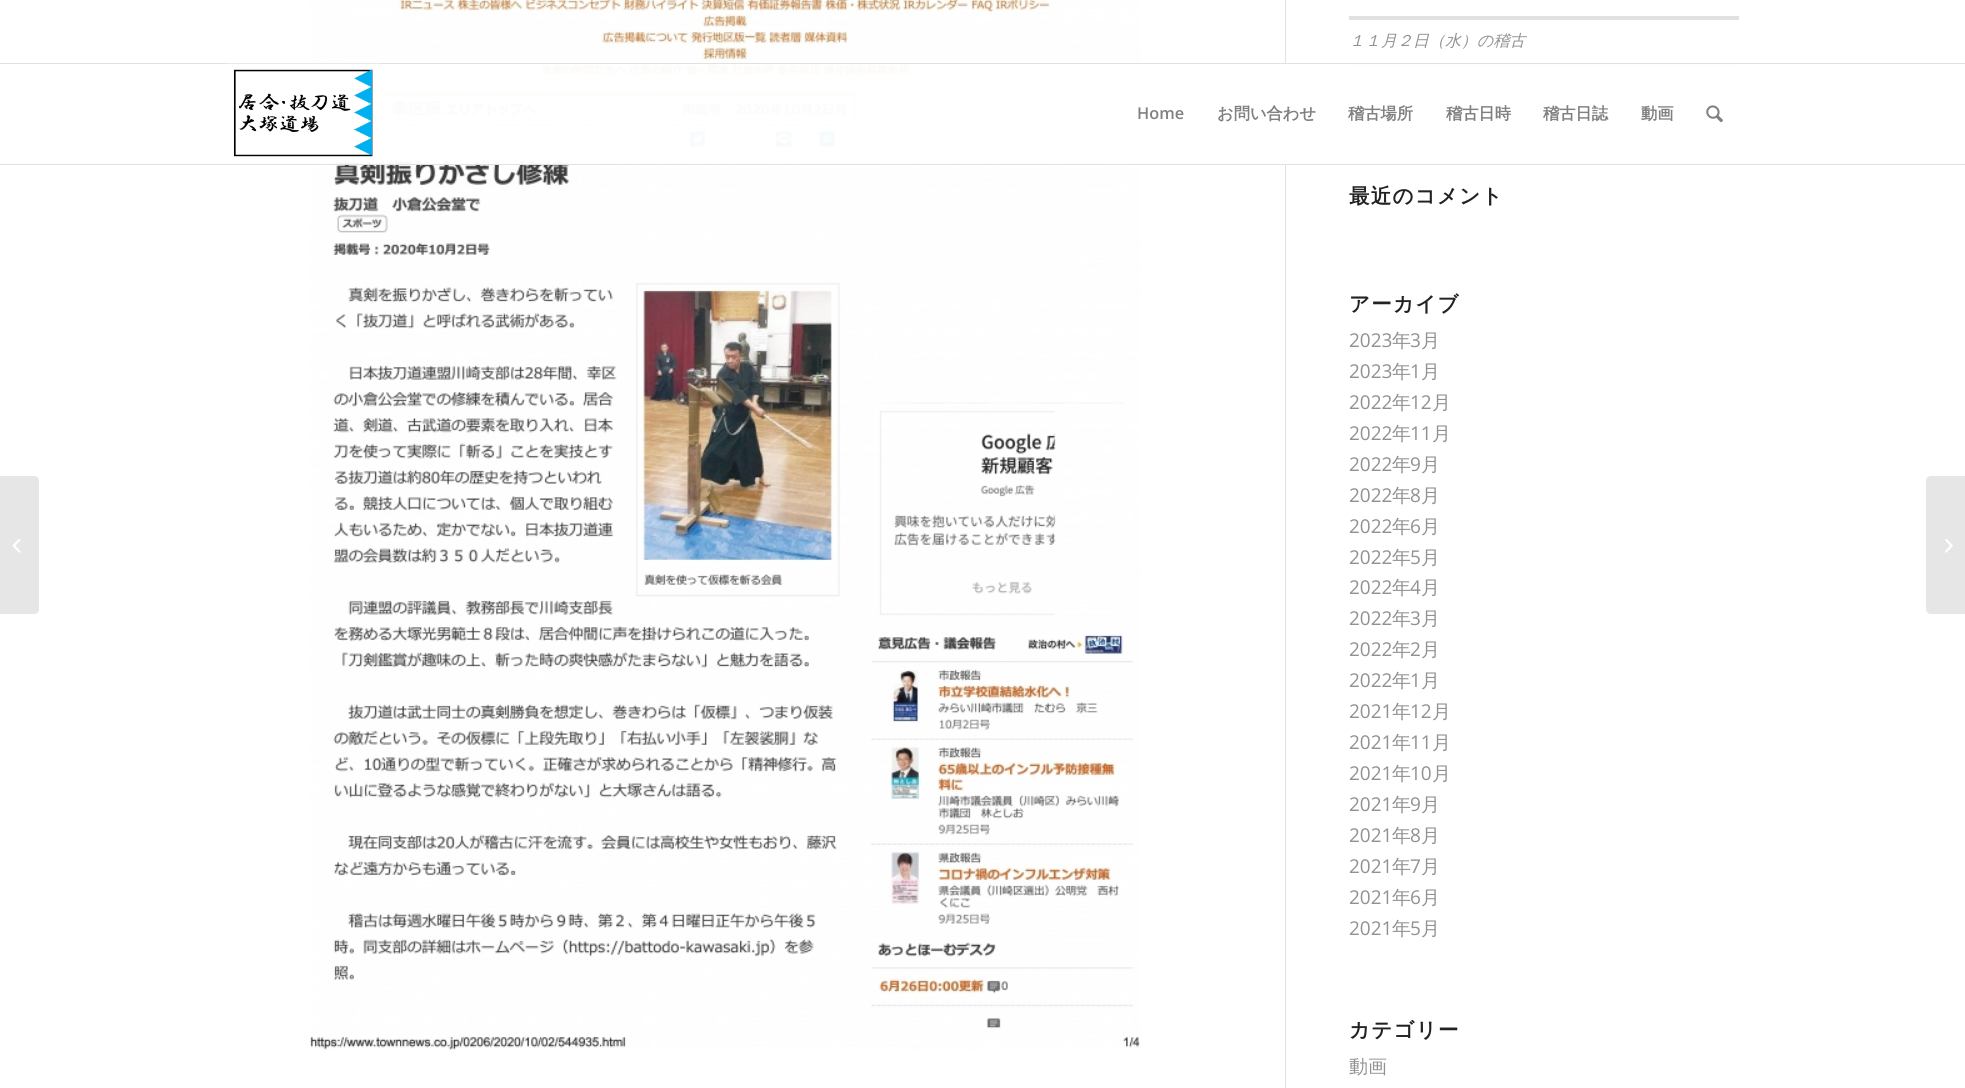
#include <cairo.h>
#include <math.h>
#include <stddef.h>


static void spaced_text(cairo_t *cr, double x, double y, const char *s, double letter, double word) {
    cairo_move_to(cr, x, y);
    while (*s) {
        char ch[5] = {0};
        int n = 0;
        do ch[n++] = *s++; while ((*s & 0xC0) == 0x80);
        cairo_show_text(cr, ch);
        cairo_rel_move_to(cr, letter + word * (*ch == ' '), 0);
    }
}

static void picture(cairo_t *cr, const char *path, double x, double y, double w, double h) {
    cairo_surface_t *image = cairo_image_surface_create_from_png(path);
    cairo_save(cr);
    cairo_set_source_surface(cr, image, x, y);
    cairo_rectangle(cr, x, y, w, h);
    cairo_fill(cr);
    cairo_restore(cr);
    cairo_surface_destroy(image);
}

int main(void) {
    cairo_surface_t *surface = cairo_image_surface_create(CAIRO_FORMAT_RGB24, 1965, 1088);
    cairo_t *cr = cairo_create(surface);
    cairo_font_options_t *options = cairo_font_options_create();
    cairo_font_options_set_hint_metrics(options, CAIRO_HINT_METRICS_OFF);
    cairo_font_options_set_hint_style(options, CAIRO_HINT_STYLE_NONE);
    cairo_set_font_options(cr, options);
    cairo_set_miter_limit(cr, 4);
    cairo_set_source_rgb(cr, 1, 1, 1);
    cairo_paint(cr);
    cairo_set_source_rgb(cr, 0.882, 0.882, 0.882);
    cairo_rectangle(cr, 1285, 0, 1, 1088);
    cairo_fill(cr);
    picture(cr, "img1.png", 310, 0, 830, 1050);
    cairo_rectangle(cr, 1349, 16, 390, 4);
    cairo_fill(cr);
    cairo_select_font_face(cr, "WenQuanYi Zen Hei Medium", CAIRO_FONT_SLANT_ITALIC, CAIRO_FONT_WEIGHT_NORMAL);
    cairo_set_font_size(cr, 16);
    cairo_set_source_rgb(cr, 0.569, 0.569, 0.569);
    cairo_move_to(cr, 1349, 46);
    cairo_show_text(cr, "１１月２日（水）の稽古");
    cairo_set_source_rgb(cr, 0.882, 0.882, 0.882);
    cairo_rectangle(cr, 1349, 64, 390, 3);
    cairo_fill(cr);
    cairo_select_font_face(cr, "WenQuanYi Zen Hei", CAIRO_FONT_SLANT_NORMAL, CAIRO_FONT_WEIGHT_BOLD);
    cairo_set_font_size(cr, 20.5);
    cairo_set_source_rgb(cr, 0.133, 0.133, 0.133);
    spaced_text(cr, 1349, 203, "最近のコメント", 1.25, 0);
    spaced_text(cr, 1349, 311, "アーカイブ", 1.25, 0);
    cairo_select_font_face(cr, "Open Sans", CAIRO_FONT_SLANT_NORMAL, CAIRO_FONT_WEIGHT_NORMAL);
    cairo_set_font_size(cr, 19);
    cairo_set_source_rgb(cr, 0.569, 0.569, 0.569);
    cairo_move_to(cr, 1349, 347);
    cairo_show_text(cr, "2023");
    cairo_select_font_face(cr, "WenQuanYi Zen Hei Medium", CAIRO_FONT_SLANT_NORMAL, CAIRO_FONT_WEIGHT_NORMAL);
    cairo_move_to(cr, 1392, 347);
    cairo_show_text(cr, "年");
    cairo_select_font_face(cr, "Open Sans", CAIRO_FONT_SLANT_NORMAL, CAIRO_FONT_WEIGHT_NORMAL);
    cairo_move_to(cr, 1410, 347);
    cairo_show_text(cr, "3");
    cairo_select_font_face(cr, "WenQuanYi Zen Hei Medium", CAIRO_FONT_SLANT_NORMAL, CAIRO_FONT_WEIGHT_NORMAL);
    cairo_move_to(cr, 1421, 347);
    cairo_show_text(cr, "月");
    cairo_select_font_face(cr, "Open Sans", CAIRO_FONT_SLANT_NORMAL, CAIRO_FONT_WEIGHT_NORMAL);
    cairo_move_to(cr, 1349, 378);
    cairo_show_text(cr, "2023");
    cairo_select_font_face(cr, "WenQuanYi Zen Hei Medium", CAIRO_FONT_SLANT_NORMAL, CAIRO_FONT_WEIGHT_NORMAL);
    cairo_move_to(cr, 1392, 378);
    cairo_show_text(cr, "年");
    cairo_select_font_face(cr, "Open Sans", CAIRO_FONT_SLANT_NORMAL, CAIRO_FONT_WEIGHT_NORMAL);
    cairo_move_to(cr, 1410, 378);
    cairo_show_text(cr, "1");
    cairo_select_font_face(cr, "WenQuanYi Zen Hei Medium", CAIRO_FONT_SLANT_NORMAL, CAIRO_FONT_WEIGHT_NORMAL);
    cairo_move_to(cr, 1421, 378);
    cairo_show_text(cr, "月");
    cairo_select_font_face(cr, "Open Sans", CAIRO_FONT_SLANT_NORMAL, CAIRO_FONT_WEIGHT_NORMAL);
    cairo_move_to(cr, 1349, 409);
    cairo_show_text(cr, "2022");
    cairo_select_font_face(cr, "WenQuanYi Zen Hei Medium", CAIRO_FONT_SLANT_NORMAL, CAIRO_FONT_WEIGHT_NORMAL);
    cairo_move_to(cr, 1392, 409);
    cairo_show_text(cr, "年");
    cairo_select_font_face(cr, "Open Sans", CAIRO_FONT_SLANT_NORMAL, CAIRO_FONT_WEIGHT_NORMAL);
    cairo_move_to(cr, 1410, 409);
    cairo_show_text(cr, "12");
    cairo_select_font_face(cr, "WenQuanYi Zen Hei Medium", CAIRO_FONT_SLANT_NORMAL, CAIRO_FONT_WEIGHT_NORMAL);
    cairo_move_to(cr, 1432, 409);
    cairo_show_text(cr, "月");
    cairo_select_font_face(cr, "Open Sans", CAIRO_FONT_SLANT_NORMAL, CAIRO_FONT_WEIGHT_NORMAL);
    cairo_move_to(cr, 1349, 440);
    cairo_show_text(cr, "2022");
    cairo_select_font_face(cr, "WenQuanYi Zen Hei Medium", CAIRO_FONT_SLANT_NORMAL, CAIRO_FONT_WEIGHT_NORMAL);
    cairo_move_to(cr, 1392, 440);
    cairo_show_text(cr, "年");
    cairo_select_font_face(cr, "Open Sans", CAIRO_FONT_SLANT_NORMAL, CAIRO_FONT_WEIGHT_NORMAL);
    cairo_move_to(cr, 1410, 440);
    cairo_show_text(cr, "11");
    cairo_select_font_face(cr, "WenQuanYi Zen Hei Medium", CAIRO_FONT_SLANT_NORMAL, CAIRO_FONT_WEIGHT_NORMAL);
    cairo_move_to(cr, 1432, 440);
    cairo_show_text(cr, "月");
    cairo_select_font_face(cr, "Open Sans", CAIRO_FONT_SLANT_NORMAL, CAIRO_FONT_WEIGHT_NORMAL);
    cairo_move_to(cr, 1349, 471);
    cairo_show_text(cr, "2022");
    cairo_select_font_face(cr, "WenQuanYi Zen Hei Medium", CAIRO_FONT_SLANT_NORMAL, CAIRO_FONT_WEIGHT_NORMAL);
    cairo_move_to(cr, 1392, 471);
    cairo_show_text(cr, "年");
    cairo_select_font_face(cr, "Open Sans", CAIRO_FONT_SLANT_NORMAL, CAIRO_FONT_WEIGHT_NORMAL);
    cairo_move_to(cr, 1410, 471);
    cairo_show_text(cr, "9");
    cairo_select_font_face(cr, "WenQuanYi Zen Hei Medium", CAIRO_FONT_SLANT_NORMAL, CAIRO_FONT_WEIGHT_NORMAL);
    cairo_move_to(cr, 1421, 471);
    cairo_show_text(cr, "月");
    cairo_select_font_face(cr, "Open Sans", CAIRO_FONT_SLANT_NORMAL, CAIRO_FONT_WEIGHT_NORMAL);
    cairo_move_to(cr, 1349, 502);
    cairo_show_text(cr, "2022");
    cairo_select_font_face(cr, "WenQuanYi Zen Hei Medium", CAIRO_FONT_SLANT_NORMAL, CAIRO_FONT_WEIGHT_NORMAL);
    cairo_move_to(cr, 1392, 502);
    cairo_show_text(cr, "年");
    cairo_select_font_face(cr, "Open Sans", CAIRO_FONT_SLANT_NORMAL, CAIRO_FONT_WEIGHT_NORMAL);
    cairo_move_to(cr, 1410, 502);
    cairo_show_text(cr, "8");
    cairo_select_font_face(cr, "WenQuanYi Zen Hei Medium", CAIRO_FONT_SLANT_NORMAL, CAIRO_FONT_WEIGHT_NORMAL);
    cairo_move_to(cr, 1421, 502);
    cairo_show_text(cr, "月");
    cairo_select_font_face(cr, "Open Sans", CAIRO_FONT_SLANT_NORMAL, CAIRO_FONT_WEIGHT_NORMAL);
    cairo_move_to(cr, 1349, 533);
    cairo_show_text(cr, "2022");
    cairo_select_font_face(cr, "WenQuanYi Zen Hei Medium", CAIRO_FONT_SLANT_NORMAL, CAIRO_FONT_WEIGHT_NORMAL);
    cairo_move_to(cr, 1392, 533);
    cairo_show_text(cr, "年");
    cairo_select_font_face(cr, "Open Sans", CAIRO_FONT_SLANT_NORMAL, CAIRO_FONT_WEIGHT_NORMAL);
    cairo_move_to(cr, 1410, 533);
    cairo_show_text(cr, "6");
    cairo_select_font_face(cr, "WenQuanYi Zen Hei Medium", CAIRO_FONT_SLANT_NORMAL, CAIRO_FONT_WEIGHT_NORMAL);
    cairo_move_to(cr, 1421, 533);
    cairo_show_text(cr, "月");
    cairo_select_font_face(cr, "Open Sans", CAIRO_FONT_SLANT_NORMAL, CAIRO_FONT_WEIGHT_NORMAL);
    cairo_move_to(cr, 1349, 564);
    cairo_show_text(cr, "2022");
    cairo_select_font_face(cr, "WenQuanYi Zen Hei Medium", CAIRO_FONT_SLANT_NORMAL, CAIRO_FONT_WEIGHT_NORMAL);
    cairo_move_to(cr, 1392, 564);
    cairo_show_text(cr, "年");
    cairo_select_font_face(cr, "Open Sans", CAIRO_FONT_SLANT_NORMAL, CAIRO_FONT_WEIGHT_NORMAL);
    cairo_move_to(cr, 1410, 564);
    cairo_show_text(cr, "5");
    cairo_select_font_face(cr, "WenQuanYi Zen Hei Medium", CAIRO_FONT_SLANT_NORMAL, CAIRO_FONT_WEIGHT_NORMAL);
    cairo_move_to(cr, 1421, 564);
    cairo_show_text(cr, "月");
    cairo_select_font_face(cr, "Open Sans", CAIRO_FONT_SLANT_NORMAL, CAIRO_FONT_WEIGHT_NORMAL);
    cairo_move_to(cr, 1349, 594);
    cairo_show_text(cr, "2022");
    cairo_select_font_face(cr, "WenQuanYi Zen Hei Medium", CAIRO_FONT_SLANT_NORMAL, CAIRO_FONT_WEIGHT_NORMAL);
    cairo_move_to(cr, 1392, 594);
    cairo_show_text(cr, "年");
    cairo_select_font_face(cr, "Open Sans", CAIRO_FONT_SLANT_NORMAL, CAIRO_FONT_WEIGHT_NORMAL);
    cairo_move_to(cr, 1410, 594);
    cairo_show_text(cr, "4");
    cairo_select_font_face(cr, "WenQuanYi Zen Hei Medium", CAIRO_FONT_SLANT_NORMAL, CAIRO_FONT_WEIGHT_NORMAL);
    cairo_move_to(cr, 1421, 594);
    cairo_show_text(cr, "月");
    cairo_select_font_face(cr, "Open Sans", CAIRO_FONT_SLANT_NORMAL, CAIRO_FONT_WEIGHT_NORMAL);
    cairo_move_to(cr, 1349, 625);
    cairo_show_text(cr, "2022");
    cairo_select_font_face(cr, "WenQuanYi Zen Hei Medium", CAIRO_FONT_SLANT_NORMAL, CAIRO_FONT_WEIGHT_NORMAL);
    cairo_move_to(cr, 1392, 625);
    cairo_show_text(cr, "年");
    cairo_select_font_face(cr, "Open Sans", CAIRO_FONT_SLANT_NORMAL, CAIRO_FONT_WEIGHT_NORMAL);
    cairo_move_to(cr, 1410, 625);
    cairo_show_text(cr, "3");
    cairo_select_font_face(cr, "WenQuanYi Zen Hei Medium", CAIRO_FONT_SLANT_NORMAL, CAIRO_FONT_WEIGHT_NORMAL);
    cairo_move_to(cr, 1421, 625);
    cairo_show_text(cr, "月");
    cairo_select_font_face(cr, "Open Sans", CAIRO_FONT_SLANT_NORMAL, CAIRO_FONT_WEIGHT_NORMAL);
    cairo_move_to(cr, 1349, 656);
    cairo_show_text(cr, "2022");
    cairo_select_font_face(cr, "WenQuanYi Zen Hei Medium", CAIRO_FONT_SLANT_NORMAL, CAIRO_FONT_WEIGHT_NORMAL);
    cairo_move_to(cr, 1392, 656);
    cairo_show_text(cr, "年");
    cairo_select_font_face(cr, "Open Sans", CAIRO_FONT_SLANT_NORMAL, CAIRO_FONT_WEIGHT_NORMAL);
    cairo_move_to(cr, 1410, 656);
    cairo_show_text(cr, "2");
    cairo_select_font_face(cr, "WenQuanYi Zen Hei Medium", CAIRO_FONT_SLANT_NORMAL, CAIRO_FONT_WEIGHT_NORMAL);
    cairo_move_to(cr, 1421, 656);
    cairo_show_text(cr, "月");
    cairo_select_font_face(cr, "Open Sans", CAIRO_FONT_SLANT_NORMAL, CAIRO_FONT_WEIGHT_NORMAL);
    cairo_move_to(cr, 1349, 687);
    cairo_show_text(cr, "2022");
    cairo_select_font_face(cr, "WenQuanYi Zen Hei Medium", CAIRO_FONT_SLANT_NORMAL, CAIRO_FONT_WEIGHT_NORMAL);
    cairo_move_to(cr, 1392, 687);
    cairo_show_text(cr, "年");
    cairo_select_font_face(cr, "Open Sans", CAIRO_FONT_SLANT_NORMAL, CAIRO_FONT_WEIGHT_NORMAL);
    cairo_move_to(cr, 1410, 687);
    cairo_show_text(cr, "1");
    cairo_select_font_face(cr, "WenQuanYi Zen Hei Medium", CAIRO_FONT_SLANT_NORMAL, CAIRO_FONT_WEIGHT_NORMAL);
    cairo_move_to(cr, 1421, 687);
    cairo_show_text(cr, "月");
    cairo_select_font_face(cr, "Open Sans", CAIRO_FONT_SLANT_NORMAL, CAIRO_FONT_WEIGHT_NORMAL);
    cairo_move_to(cr, 1349, 718);
    cairo_show_text(cr, "2021");
    cairo_select_font_face(cr, "WenQuanYi Zen Hei Medium", CAIRO_FONT_SLANT_NORMAL, CAIRO_FONT_WEIGHT_NORMAL);
    cairo_move_to(cr, 1392, 718);
    cairo_show_text(cr, "年");
    cairo_select_font_face(cr, "Open Sans", CAIRO_FONT_SLANT_NORMAL, CAIRO_FONT_WEIGHT_NORMAL);
    cairo_move_to(cr, 1410, 718);
    cairo_show_text(cr, "12");
    cairo_select_font_face(cr, "WenQuanYi Zen Hei Medium", CAIRO_FONT_SLANT_NORMAL, CAIRO_FONT_WEIGHT_NORMAL);
    cairo_move_to(cr, 1432, 718);
    cairo_show_text(cr, "月");
    cairo_select_font_face(cr, "Open Sans", CAIRO_FONT_SLANT_NORMAL, CAIRO_FONT_WEIGHT_NORMAL);
    cairo_move_to(cr, 1349, 749);
    cairo_show_text(cr, "2021");
    cairo_select_font_face(cr, "WenQuanYi Zen Hei Medium", CAIRO_FONT_SLANT_NORMAL, CAIRO_FONT_WEIGHT_NORMAL);
    cairo_move_to(cr, 1392, 749);
    cairo_show_text(cr, "年");
    cairo_select_font_face(cr, "Open Sans", CAIRO_FONT_SLANT_NORMAL, CAIRO_FONT_WEIGHT_NORMAL);
    cairo_move_to(cr, 1410, 749);
    cairo_show_text(cr, "11");
    cairo_select_font_face(cr, "WenQuanYi Zen Hei Medium", CAIRO_FONT_SLANT_NORMAL, CAIRO_FONT_WEIGHT_NORMAL);
    cairo_move_to(cr, 1432, 749);
    cairo_show_text(cr, "月");
    cairo_select_font_face(cr, "Open Sans", CAIRO_FONT_SLANT_NORMAL, CAIRO_FONT_WEIGHT_NORMAL);
    cairo_move_to(cr, 1349, 780);
    cairo_show_text(cr, "2021");
    cairo_select_font_face(cr, "WenQuanYi Zen Hei Medium", CAIRO_FONT_SLANT_NORMAL, CAIRO_FONT_WEIGHT_NORMAL);
    cairo_move_to(cr, 1392, 780);
    cairo_show_text(cr, "年");
    cairo_select_font_face(cr, "Open Sans", CAIRO_FONT_SLANT_NORMAL, CAIRO_FONT_WEIGHT_NORMAL);
    cairo_move_to(cr, 1410, 780);
    cairo_show_text(cr, "10");
    cairo_select_font_face(cr, "WenQuanYi Zen Hei Medium", CAIRO_FONT_SLANT_NORMAL, CAIRO_FONT_WEIGHT_NORMAL);
    cairo_move_to(cr, 1432, 780);
    cairo_show_text(cr, "月");
    cairo_select_font_face(cr, "Open Sans", CAIRO_FONT_SLANT_NORMAL, CAIRO_FONT_WEIGHT_NORMAL);
    cairo_move_to(cr, 1349, 811);
    cairo_show_text(cr, "2021");
    cairo_select_font_face(cr, "WenQuanYi Zen Hei Medium", CAIRO_FONT_SLANT_NORMAL, CAIRO_FONT_WEIGHT_NORMAL);
    cairo_move_to(cr, 1392, 811);
    cairo_show_text(cr, "年");
    cairo_select_font_face(cr, "Open Sans", CAIRO_FONT_SLANT_NORMAL, CAIRO_FONT_WEIGHT_NORMAL);
    cairo_move_to(cr, 1410, 811);
    cairo_show_text(cr, "9");
    cairo_select_font_face(cr, "WenQuanYi Zen Hei Medium", CAIRO_FONT_SLANT_NORMAL, CAIRO_FONT_WEIGHT_NORMAL);
    cairo_move_to(cr, 1421, 811);
    cairo_show_text(cr, "月");
    cairo_select_font_face(cr, "Open Sans", CAIRO_FONT_SLANT_NORMAL, CAIRO_FONT_WEIGHT_NORMAL);
    cairo_move_to(cr, 1349, 842);
    cairo_show_text(cr, "2021");
    cairo_select_font_face(cr, "WenQuanYi Zen Hei Medium", CAIRO_FONT_SLANT_NORMAL, CAIRO_FONT_WEIGHT_NORMAL);
    cairo_move_to(cr, 1392, 842);
    cairo_show_text(cr, "年");
    cairo_select_font_face(cr, "Open Sans", CAIRO_FONT_SLANT_NORMAL, CAIRO_FONT_WEIGHT_NORMAL);
    cairo_move_to(cr, 1410, 842);
    cairo_show_text(cr, "8");
    cairo_select_font_face(cr, "WenQuanYi Zen Hei Medium", CAIRO_FONT_SLANT_NORMAL, CAIRO_FONT_WEIGHT_NORMAL);
    cairo_move_to(cr, 1421, 842);
    cairo_show_text(cr, "月");
    cairo_select_font_face(cr, "Open Sans", CAIRO_FONT_SLANT_NORMAL, CAIRO_FONT_WEIGHT_NORMAL);
    cairo_move_to(cr, 1349, 873);
    cairo_show_text(cr, "2021");
    cairo_select_font_face(cr, "WenQuanYi Zen Hei Medium", CAIRO_FONT_SLANT_NORMAL, CAIRO_FONT_WEIGHT_NORMAL);
    cairo_move_to(cr, 1392, 873);
    cairo_show_text(cr, "年");
    cairo_select_font_face(cr, "Open Sans", CAIRO_FONT_SLANT_NORMAL, CAIRO_FONT_WEIGHT_NORMAL);
    cairo_move_to(cr, 1410, 873);
    cairo_show_text(cr, "7");
    cairo_select_font_face(cr, "WenQuanYi Zen Hei Medium", CAIRO_FONT_SLANT_NORMAL, CAIRO_FONT_WEIGHT_NORMAL);
    cairo_move_to(cr, 1421, 873);
    cairo_show_text(cr, "月");
    cairo_select_font_face(cr, "Open Sans", CAIRO_FONT_SLANT_NORMAL, CAIRO_FONT_WEIGHT_NORMAL);
    cairo_move_to(cr, 1349, 904);
    cairo_show_text(cr, "2021");
    cairo_select_font_face(cr, "WenQuanYi Zen Hei Medium", CAIRO_FONT_SLANT_NORMAL, CAIRO_FONT_WEIGHT_NORMAL);
    cairo_move_to(cr, 1392, 904);
    cairo_show_text(cr, "年");
    cairo_select_font_face(cr, "Open Sans", CAIRO_FONT_SLANT_NORMAL, CAIRO_FONT_WEIGHT_NORMAL);
    cairo_move_to(cr, 1410, 904);
    cairo_show_text(cr, "6");
    cairo_select_font_face(cr, "WenQuanYi Zen Hei Medium", CAIRO_FONT_SLANT_NORMAL, CAIRO_FONT_WEIGHT_NORMAL);
    cairo_move_to(cr, 1421, 904);
    cairo_show_text(cr, "月");
    cairo_select_font_face(cr, "Open Sans", CAIRO_FONT_SLANT_NORMAL, CAIRO_FONT_WEIGHT_NORMAL);
    cairo_move_to(cr, 1349, 935);
    cairo_show_text(cr, "2021");
    cairo_select_font_face(cr, "WenQuanYi Zen Hei Medium", CAIRO_FONT_SLANT_NORMAL, CAIRO_FONT_WEIGHT_NORMAL);
    cairo_move_to(cr, 1392, 935);
    cairo_show_text(cr, "年");
    cairo_select_font_face(cr, "Open Sans", CAIRO_FONT_SLANT_NORMAL, CAIRO_FONT_WEIGHT_NORMAL);
    cairo_move_to(cr, 1410, 935);
    cairo_show_text(cr, "5");
    cairo_select_font_face(cr, "WenQuanYi Zen Hei Medium", CAIRO_FONT_SLANT_NORMAL, CAIRO_FONT_WEIGHT_NORMAL);
    cairo_move_to(cr, 1421, 935);
    cairo_show_text(cr, "月");
    cairo_select_font_face(cr, "WenQuanYi Zen Hei", CAIRO_FONT_SLANT_NORMAL, CAIRO_FONT_WEIGHT_BOLD);
    cairo_set_font_size(cr, 20.5);
    cairo_set_source_rgb(cr, 0.133, 0.133, 0.133);
    spaced_text(cr, 1349, 1037, "カテゴリー", 1.25, 0);
    cairo_select_font_face(cr, "WenQuanYi Zen Hei Medium", CAIRO_FONT_SLANT_NORMAL, CAIRO_FONT_WEIGHT_NORMAL);
    cairo_set_font_size(cr, 19);
    cairo_set_source_rgb(cr, 0.569, 0.569, 0.569);
    cairo_move_to(cr, 1349, 1073);
    cairo_show_text(cr, "動画");
    cairo_set_source_rgba(cr, 1, 1, 1, 0.95);
    cairo_rectangle(cr, 314, 64, 1425, 100);
    cairo_fill(cr);
    cairo_set_source_rgb(cr, 0.882, 0.882, 0.882);
    cairo_rectangle(cr, 0, 63, 1965, 1);
    cairo_fill(cr);
    cairo_rectangle(cr, 0, 164, 1965, 1);
    cairo_fill(cr);
    picture(cr, "img2.png", 226, 63, 154, 100);
    cairo_select_font_face(cr, "Open Sans SemiBold", CAIRO_FONT_SLANT_NORMAL, CAIRO_FONT_WEIGHT_NORMAL);
    cairo_set_font_size(cr, 16.25);
    cairo_set_source_rgb(cr, 0.502, 0.502, 0.502);
    cairo_move_to(cr, 1137, 119);
    cairo_show_text(cr, "Home");
    cairo_select_font_face(cr, "WenQuanYi Zen Hei", CAIRO_FONT_SLANT_NORMAL, CAIRO_FONT_WEIGHT_BOLD);
    cairo_move_to(cr, 1217, 119);
    cairo_show_text(cr, "お問い合わせ");
    cairo_move_to(cr, 1348, 119);
    cairo_show_text(cr, "稽古場所");
    cairo_move_to(cr, 1446, 119);
    cairo_show_text(cr, "稽古日時");
    cairo_move_to(cr, 1543, 119);
    cairo_show_text(cr, "稽古日誌");
    cairo_move_to(cr, 1641, 119);
    cairo_show_text(cr, "動画");
    picture(cr, "img3.png", 1706, 105, 17, 18);
    cairo_set_source_rgb(cr, 0.902, 0.902, 0.902);
    cairo_new_path(cr);
    cairo_move_to(cr, 0, 476);
    cairo_line_to(cr, 34, 476);
    cairo_curve_to(cr, 37, 476, 39, 478, 39, 481);
    cairo_line_to(cr, 39, 609);
    cairo_curve_to(cr, 39, 612, 37, 614, 34, 614);
    cairo_line_to(cr, 0, 614);
    cairo_close_path(cr);
    cairo_fill(cr);
    picture(cr, "img4.png", 12, 539, 9, 14);
    cairo_new_path(cr);
    cairo_move_to(cr, 1931, 476);
    cairo_line_to(cr, 1965, 476);
    cairo_line_to(cr, 1965, 614);
    cairo_line_to(cr, 1931, 614);
    cairo_curve_to(cr, 1928, 614, 1926, 612, 1926, 609);
    cairo_line_to(cr, 1926, 481);
    cairo_curve_to(cr, 1926, 478, 1928, 476, 1931, 476);
    cairo_close_path(cr);
    cairo_fill(cr);
    picture(cr, "img5.png", 1945, 539, 8, 14);
    cairo_surface_write_to_png(surface, "page.png");
    cairo_font_options_destroy(options);
    cairo_destroy(cr);
    cairo_surface_destroy(surface);
    return 0;
}
